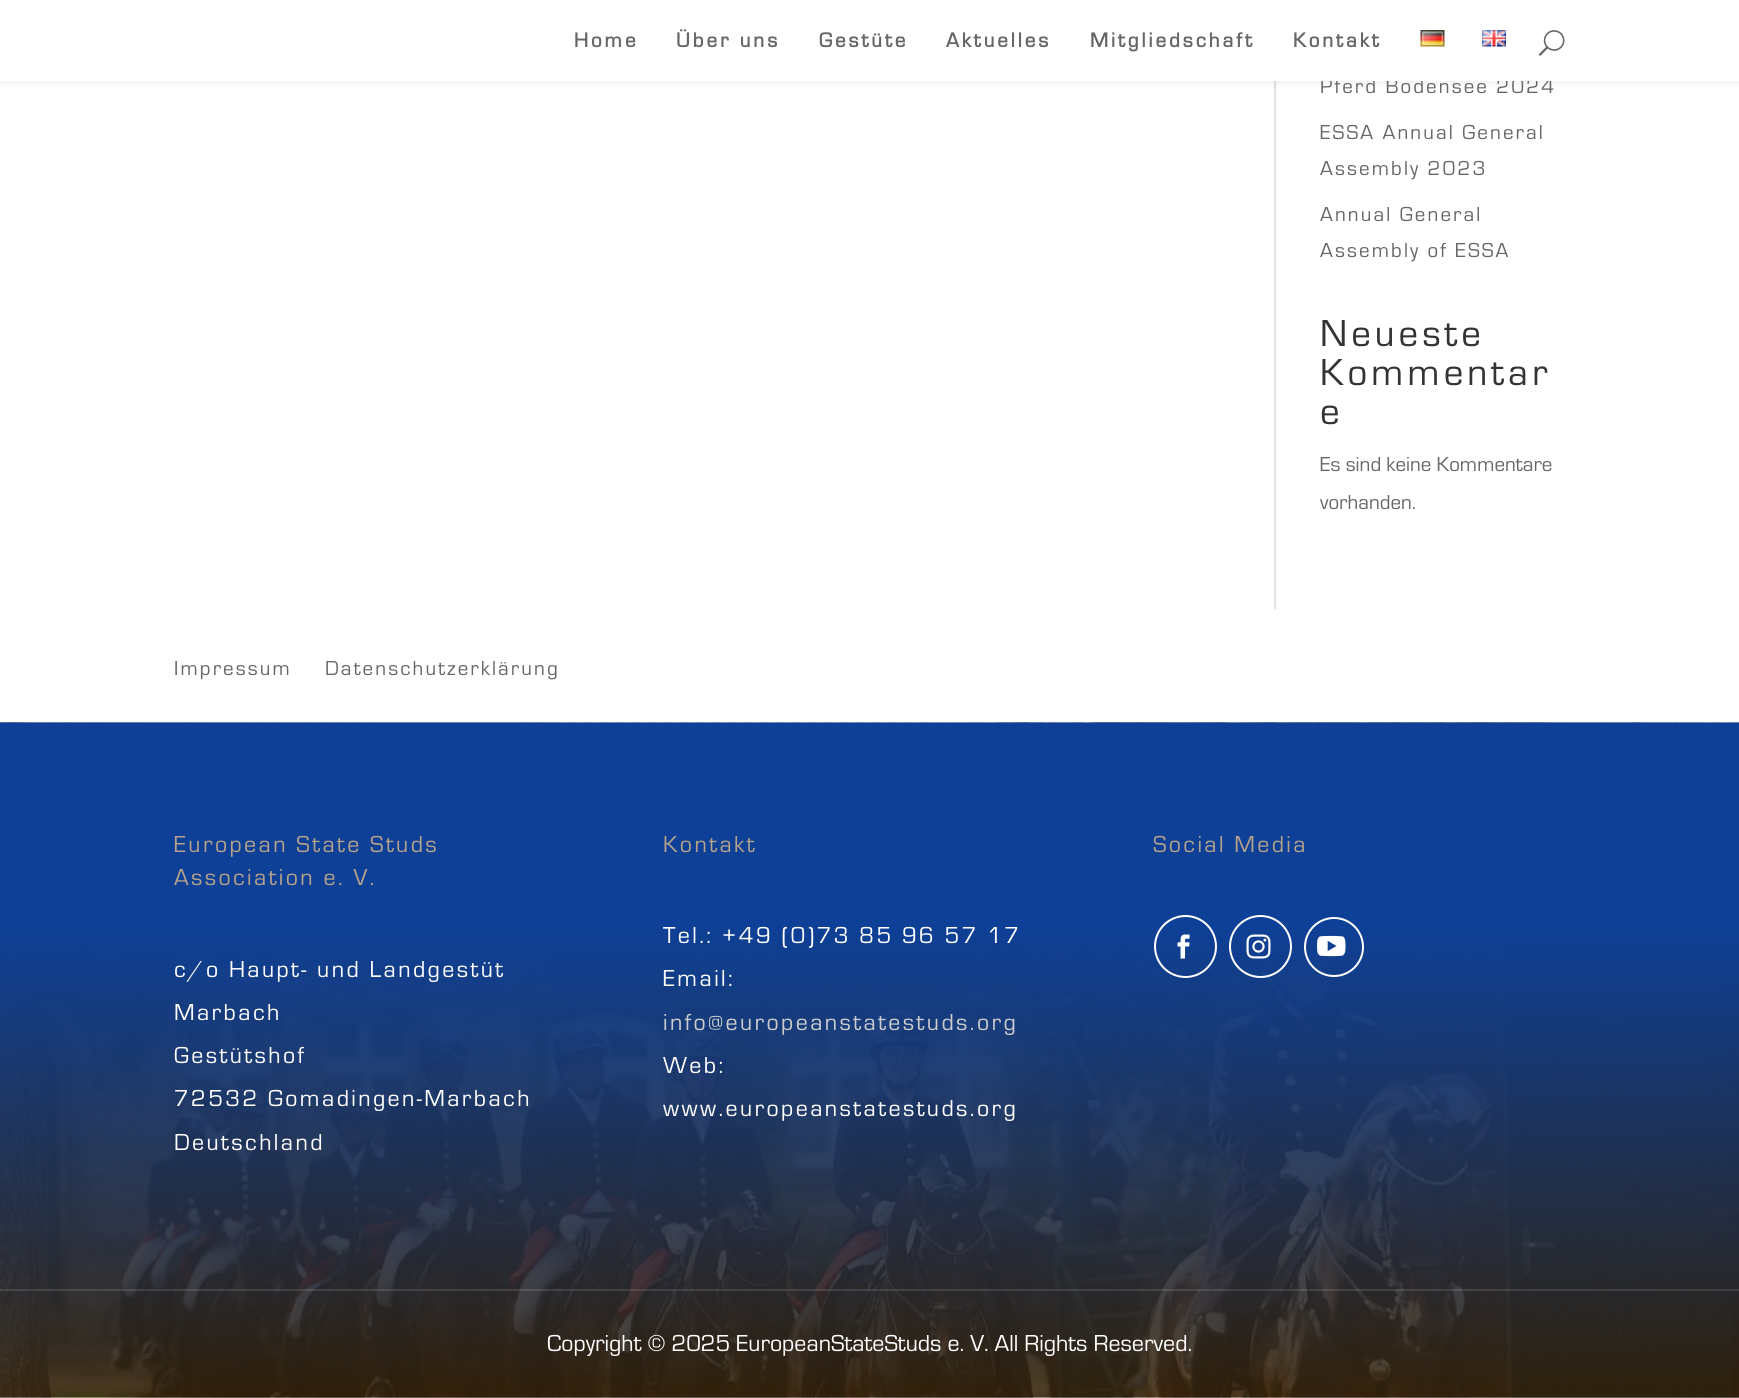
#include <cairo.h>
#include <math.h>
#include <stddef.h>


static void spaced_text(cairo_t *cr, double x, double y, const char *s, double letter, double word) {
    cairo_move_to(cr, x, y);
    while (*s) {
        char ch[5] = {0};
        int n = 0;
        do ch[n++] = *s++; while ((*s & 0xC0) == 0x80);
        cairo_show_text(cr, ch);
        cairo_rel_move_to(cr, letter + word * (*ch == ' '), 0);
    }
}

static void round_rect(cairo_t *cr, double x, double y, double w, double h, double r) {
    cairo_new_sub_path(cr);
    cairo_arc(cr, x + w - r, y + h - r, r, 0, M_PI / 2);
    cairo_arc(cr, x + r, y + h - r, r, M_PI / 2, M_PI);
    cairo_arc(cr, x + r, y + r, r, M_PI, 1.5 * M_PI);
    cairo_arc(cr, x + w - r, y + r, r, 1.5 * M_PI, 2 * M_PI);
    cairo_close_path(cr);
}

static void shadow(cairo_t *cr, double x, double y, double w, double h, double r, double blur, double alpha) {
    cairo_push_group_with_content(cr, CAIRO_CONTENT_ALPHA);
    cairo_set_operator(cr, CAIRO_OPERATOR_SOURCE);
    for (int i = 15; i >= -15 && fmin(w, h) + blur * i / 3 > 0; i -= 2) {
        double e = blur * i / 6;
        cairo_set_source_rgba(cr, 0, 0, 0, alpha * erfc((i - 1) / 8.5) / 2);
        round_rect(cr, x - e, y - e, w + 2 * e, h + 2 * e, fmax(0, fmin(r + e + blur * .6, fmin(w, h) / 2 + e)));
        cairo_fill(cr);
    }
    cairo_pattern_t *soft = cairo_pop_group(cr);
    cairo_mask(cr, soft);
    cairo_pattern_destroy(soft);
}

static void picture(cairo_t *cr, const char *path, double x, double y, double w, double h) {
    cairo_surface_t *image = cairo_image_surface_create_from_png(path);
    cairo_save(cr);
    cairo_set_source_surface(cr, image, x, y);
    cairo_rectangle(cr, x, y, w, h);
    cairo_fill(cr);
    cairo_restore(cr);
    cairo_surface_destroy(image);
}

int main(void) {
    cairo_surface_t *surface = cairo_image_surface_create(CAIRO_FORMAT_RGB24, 1739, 1398);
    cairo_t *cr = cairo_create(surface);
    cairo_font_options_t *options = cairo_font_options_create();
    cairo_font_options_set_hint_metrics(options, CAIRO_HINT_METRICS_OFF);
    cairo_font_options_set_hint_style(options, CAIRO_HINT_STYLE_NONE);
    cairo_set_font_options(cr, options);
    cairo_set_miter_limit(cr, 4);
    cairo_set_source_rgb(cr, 1, 1, 1);
    cairo_paint(cr);
    cairo_set_source_rgb(cr, 0.886, 0.886, 0.886);
    cairo_rectangle(cr, 1274, 81, 2, 528);
    cairo_fill(cr);
    cairo_set_source_rgb(cr, 0, 0, 0);
    shadow(cr, 0, 0, 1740, 81, 0, 5, 0.1);
    cairo_select_font_face(cr, "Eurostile", CAIRO_FONT_SLANT_NORMAL, CAIRO_FONT_WEIGHT_NORMAL);
    cairo_set_font_size(cr, 21);
    cairo_set_source_rgb(cr, 0.4, 0.4, 0.4);
    spaced_text(cr, 1320, 93, "Pferd Bodensee 2024", 2.1, 0);
    cairo_set_source_rgb(cr, 1, 1, 1);
    cairo_rectangle(cr, 0, 0, 1739, 81);
    cairo_fill(cr);
    cairo_select_font_face(cr, "Eurostile", CAIRO_FONT_SLANT_NORMAL, CAIRO_FONT_WEIGHT_BOLD);
    cairo_set_source_rgb(cr, 0.4, 0.4, 0.4);
    spaced_text(cr, 574, 47, "Home", 3, 0);
    spaced_text(cr, 676, 47, "Über uns", 3, 0);
    spaced_text(cr, 819, 47, "Gestüte", 3, 0);
    spaced_text(cr, 946, 47, "Aktuelles", 3, 0);
    spaced_text(cr, 1090, 47, "Mitgliedschaft", 3, 0);
    spaced_text(cr, 1293, 47, "Kontakt", 3, 0);
    picture(cr, "img1.png", 1420, 30, 25, 17);
    picture(cr, "img2.png", 1482, 30, 24, 17);
    picture(cr, "img3.png", 1538, 30, 27, 26);
    cairo_select_font_face(cr, "Eurostile", CAIRO_FONT_SLANT_NORMAL, CAIRO_FONT_WEIGHT_NORMAL);
    spaced_text(cr, 1320, 139, "ESSA Annual General", 2.1, 0);
    spaced_text(cr, 1320, 175, "Assembly 2023", 2.1, 0);
    spaced_text(cr, 1320, 221, "Annual General", 2.1, 0);
    spaced_text(cr, 1320, 257, "Assembly of ESSA", 2.1, 0);
    cairo_set_font_size(cr, 39);
    cairo_set_source_rgb(cr, 0.2, 0.2, 0.2);
    spaced_text(cr, 1320, 346, "Neueste", 4, 0);
    spaced_text(cr, 1320, 385, "Kommentar", 4, 0);
    spaced_text(cr, 1320, 424, "e", 4, 0);
    cairo_set_font_size(cr, 21);
    cairo_set_source_rgb(cr, 0.4, 0.4, 0.4);
    cairo_move_to(cr, 1320, 471);
    cairo_show_text(cr, "Es sind keine Kommentare");
    cairo_move_to(cr, 1320, 509);
    cairo_show_text(cr, "vorhanden.");
    spaced_text(cr, 174, 675, "Impressum", 2.1, 0);
    spaced_text(cr, 325, 675, "Datenschutzerklärung", 2.1, 0);
    picture(cr, "img4.png", 0, 722, 1739, 676);
    cairo_set_font_size(cr, 24);
    cairo_set_source_rgb(cr, 0.71, 0.635, 0.537);
    spaced_text(cr, 174, 852, "European State Studs", 2.4, 0);
    spaced_text(cr, 174, 885, "Association e. V.", 2.4, 0);
    cairo_set_source_rgb(cr, 1, 1, 1);
    spaced_text(cr, 174, 977, "c/o Haupt- und Landgestüt", 2.4, 0);
    spaced_text(cr, 174, 1020, "Marbach", 2.4, 0);
    spaced_text(cr, 174, 1063, "Gestütshof", 2.4, 0);
    spaced_text(cr, 174, 1106, "72532 Gomadingen-Marbach", 2.4, 0);
    spaced_text(cr, 174, 1150, "Deutschland", 2.4, 0);
    cairo_set_source_rgb(cr, 0.71, 0.635, 0.537);
    spaced_text(cr, 663, 852, "Kontakt", 2.4, 0);
    cairo_set_source_rgb(cr, 1, 1, 1);
    spaced_text(cr, 663, 943, "Tel.: +49 (0)73 85 96 57 17", 2.4, 0);
    spaced_text(cr, 663, 986, "Email:", 2.4, 0);
    cairo_set_source_rgb(cr, 0.8, 0.8, 0.8);
    spaced_text(cr, 663, 1030, "info@europeanstatestuds.org", 2.4, 0);
    cairo_set_source_rgb(cr, 1, 1, 1);
    spaced_text(cr, 663, 1073, "Web:", 2.4, 0);
    spaced_text(cr, 663, 1116, "www.europeanstatestuds.org", 2.4, 0);
    cairo_set_source_rgb(cr, 0.71, 0.635, 0.537);
    spaced_text(cr, 1153, 852, "Social Media", 2.4, 0);
    cairo_new_path(cr);
    cairo_arc(cr, 1185.5, 946.5, 30.5, 0, 2 * M_PI);
    cairo_set_source_rgb(cr, 1, 1, 1);
    cairo_stroke(cr);
    picture(cr, "img5.png", 1177, 934, 13, 25);
    cairo_arc(cr, 1260.5, 946.5, 30.5, 0, 2 * M_PI);
    cairo_stroke(cr);
    picture(cr, "img6.png", 1246, 934, 25, 25);
    cairo_arc(cr, 1334, 947, 29, 0, 2 * M_PI);
    cairo_stroke(cr);
    picture(cr, "img7.png", 1317, 935, 29, 22);
    cairo_set_source_rgba(cr, 1, 1, 1, 0.12);
    cairo_rectangle(cr, 0, 1289, 1739, 2);
    cairo_fill(cr);
    cairo_set_source_rgb(cr, 1, 1, 1);
    cairo_move_to(cr, 547, 1351);
    cairo_show_text(cr, "Copyright © 2025 EuropeanStateStuds e. V. All Rights Reserved.");
    cairo_surface_write_to_png(surface, "page.png");
    cairo_font_options_destroy(options);
    cairo_destroy(cr);
    cairo_surface_destroy(surface);
    return 0;
}
